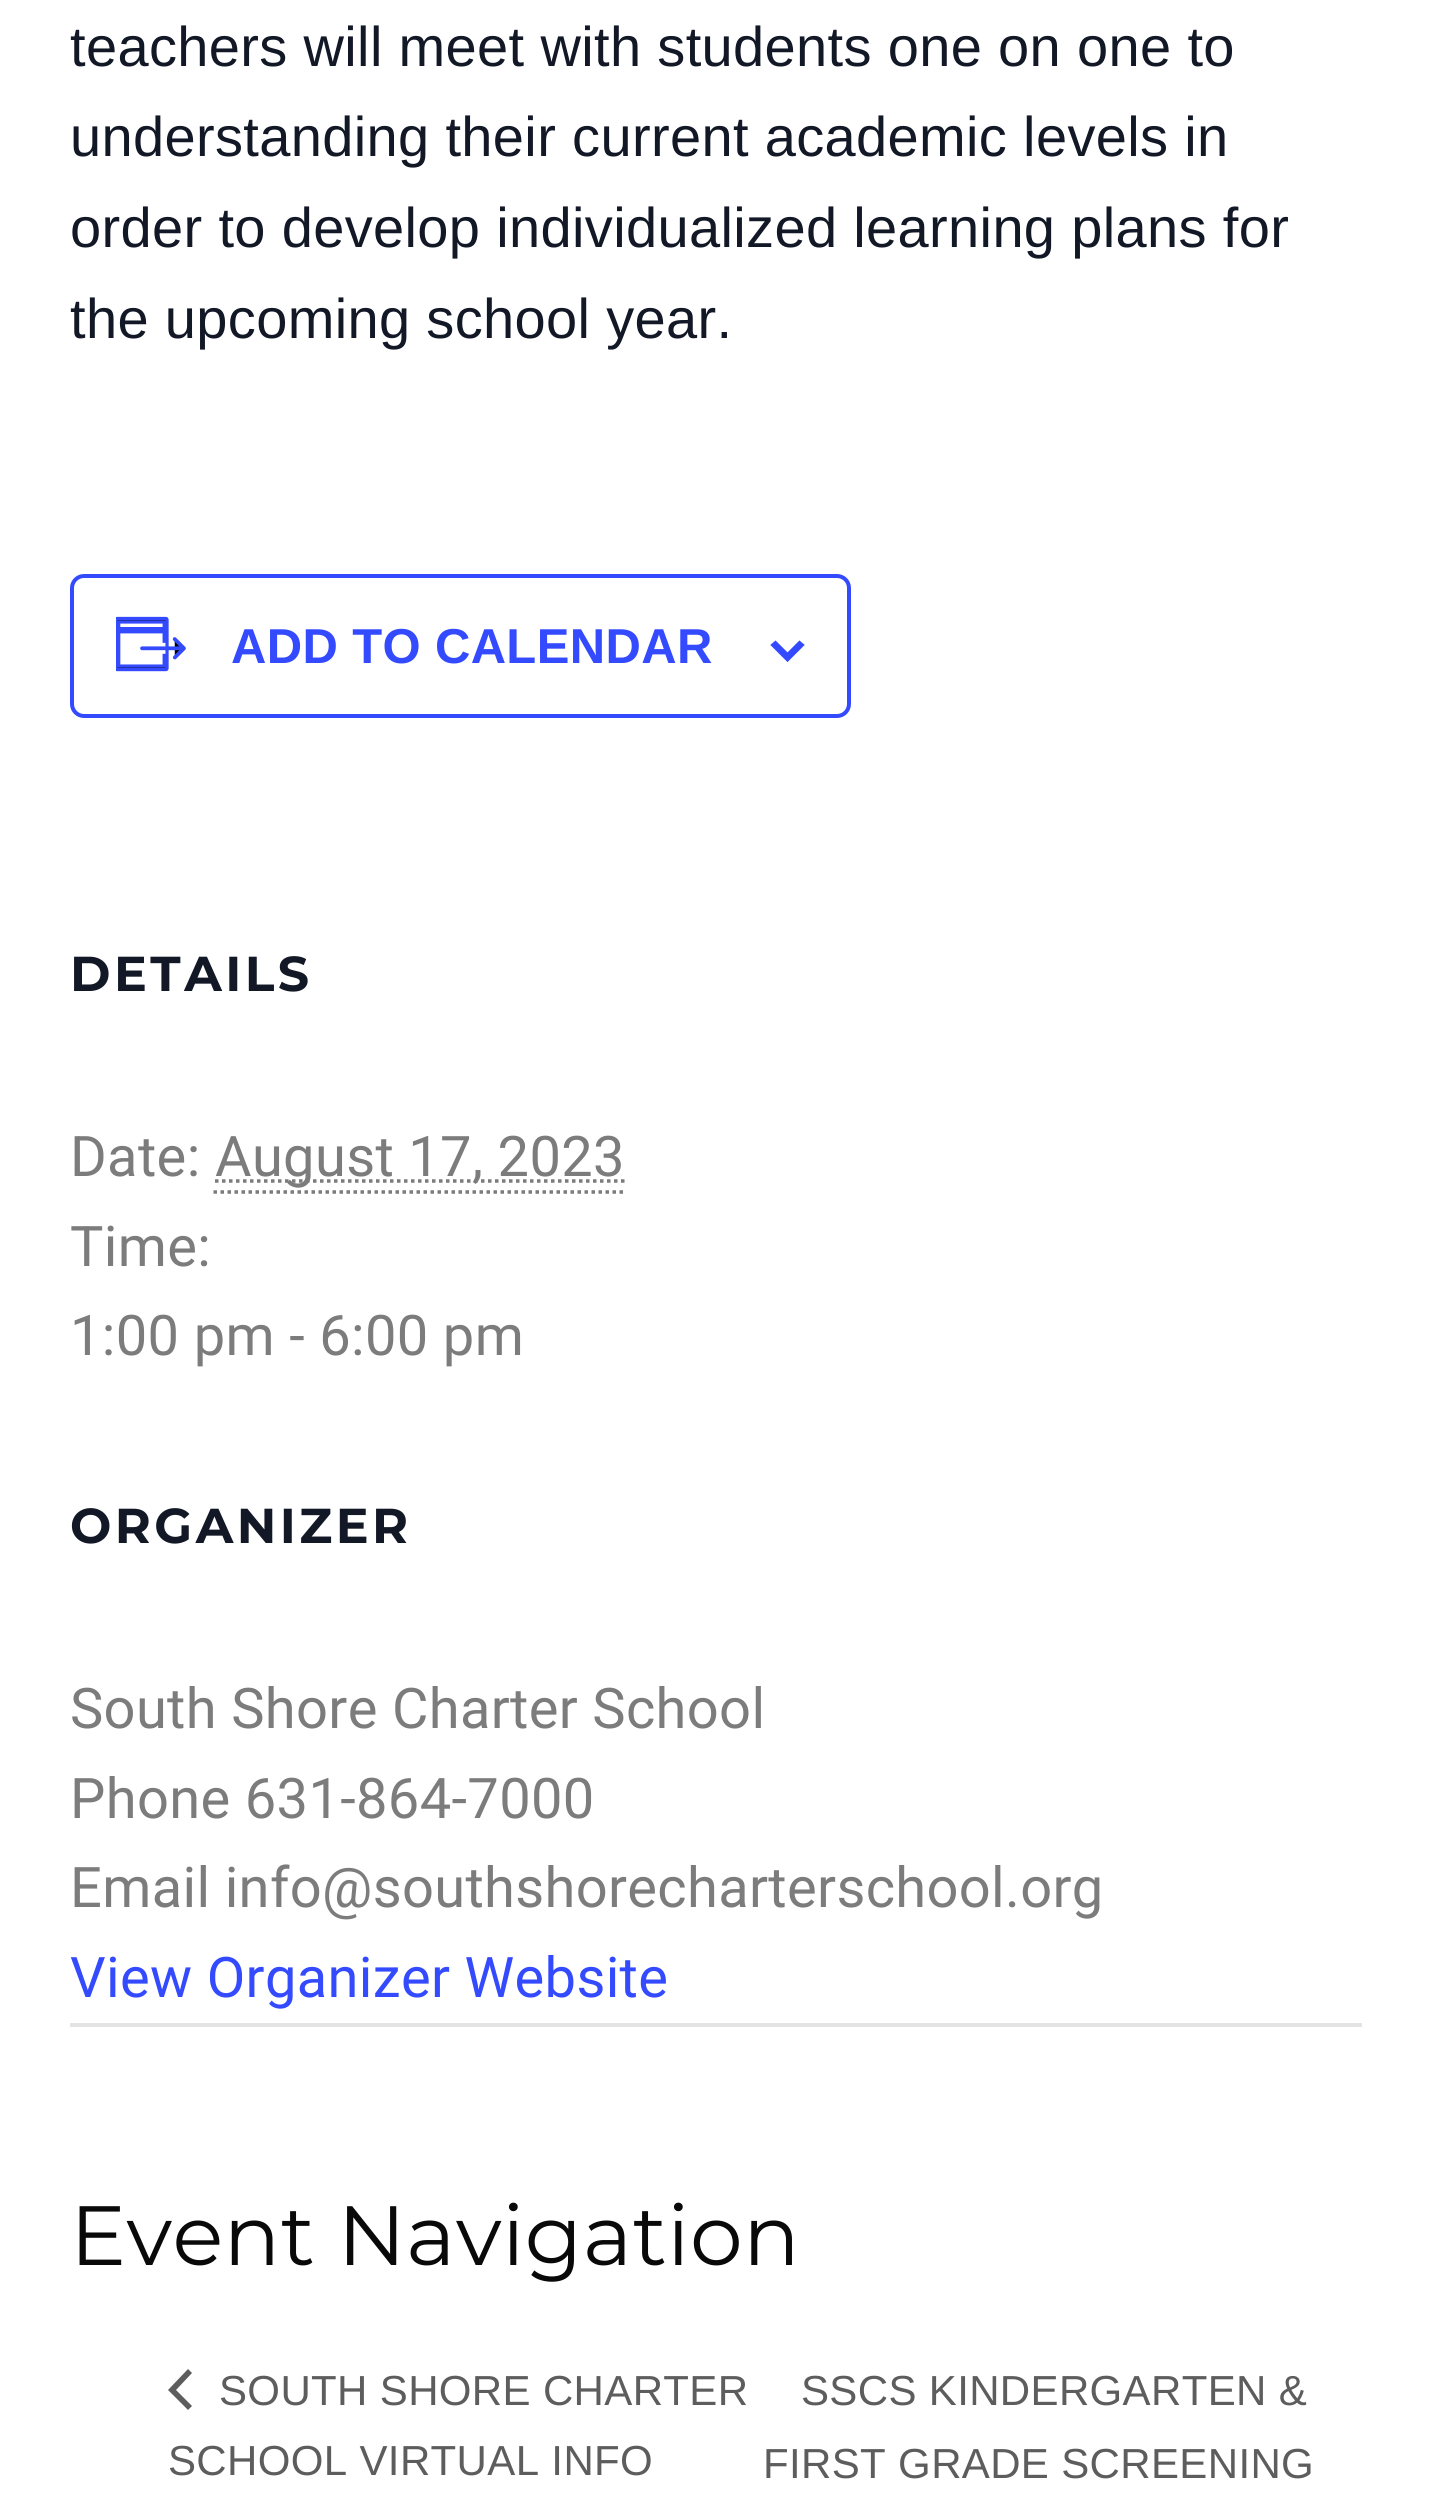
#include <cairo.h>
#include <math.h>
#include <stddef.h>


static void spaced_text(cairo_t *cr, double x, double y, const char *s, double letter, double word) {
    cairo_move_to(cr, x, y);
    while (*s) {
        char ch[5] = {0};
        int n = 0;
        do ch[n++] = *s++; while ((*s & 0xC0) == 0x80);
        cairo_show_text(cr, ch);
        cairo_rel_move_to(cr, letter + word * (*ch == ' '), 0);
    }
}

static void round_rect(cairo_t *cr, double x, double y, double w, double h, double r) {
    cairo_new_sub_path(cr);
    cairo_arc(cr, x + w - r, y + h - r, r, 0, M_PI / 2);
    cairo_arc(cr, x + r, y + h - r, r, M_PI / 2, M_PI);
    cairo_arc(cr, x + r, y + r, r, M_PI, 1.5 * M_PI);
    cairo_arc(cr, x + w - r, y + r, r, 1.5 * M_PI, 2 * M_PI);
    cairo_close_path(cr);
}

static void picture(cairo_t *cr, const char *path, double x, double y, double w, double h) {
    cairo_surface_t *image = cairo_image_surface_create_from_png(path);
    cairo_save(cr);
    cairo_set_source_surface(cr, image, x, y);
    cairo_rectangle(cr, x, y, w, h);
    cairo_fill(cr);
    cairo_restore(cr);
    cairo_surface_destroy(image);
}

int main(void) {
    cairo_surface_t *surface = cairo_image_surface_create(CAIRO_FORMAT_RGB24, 1431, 2511);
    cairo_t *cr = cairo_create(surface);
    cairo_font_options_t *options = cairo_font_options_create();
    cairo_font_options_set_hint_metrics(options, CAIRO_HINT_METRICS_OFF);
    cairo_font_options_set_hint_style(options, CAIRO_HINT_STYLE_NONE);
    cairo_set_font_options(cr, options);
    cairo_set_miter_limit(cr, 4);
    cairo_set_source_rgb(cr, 1, 1, 1);
    cairo_paint(cr);
    cairo_select_font_face(cr, "Liberation Sans", CAIRO_FONT_SLANT_NORMAL, CAIRO_FONT_WEIGHT_NORMAL);
    cairo_set_font_size(cr, 56);
    cairo_set_source_rgb(cr, 0.078, 0.094, 0.153);
    spaced_text(cr, 70, 66, "teachers will meet with students one on one to", 0.35, 0);
    spaced_text(cr, 70, 156, "understanding their current academic levels in", 0.35, 0);
    spaced_text(cr, 70, 247, "order to develop individualized learning plans for", 0.35, 0);
    spaced_text(cr, 70, 338, "the upcoming school year.", 0.35, 0);
    round_rect(cr, 72, 576, 777, 140, 12);
    cairo_set_source_rgb(cr, 0.2, 0.29, 1);
    cairo_set_line_width(cr, 4);
    cairo_stroke(cr);
    picture(cr, "img1.png", 116, 616, 70, 56);
    cairo_select_font_face(cr, "Liberation Sans", CAIRO_FONT_SLANT_NORMAL, CAIRO_FONT_WEIGHT_BOLD);
    cairo_set_font_size(cr, 49);
    spaced_text(cr, 231, 663, "ADD TO CALENDAR", 0.35, 0);
    cairo_set_fill_rule(cr, CAIRO_FILL_RULE_EVEN_ODD);
    cairo_new_path(cr);
    cairo_move_to(cr, 775.5, 642.5);
    cairo_line_to(cr, 787.5, 654.5);
    cairo_line_to(cr, 799.5, 642.5);
    cairo_line_to(cr, 802.5, 645);
    cairo_line_to(cr, 787.5, 660);
    cairo_line_to(cr, 772.5, 645);
    cairo_close_path(cr);
    cairo_fill_preserve(cr);
    cairo_set_line_width(cr, 3);
    cairo_stroke(cr);
    cairo_select_font_face(cr, "Montserrat", CAIRO_FONT_SLANT_NORMAL, CAIRO_FONT_WEIGHT_BOLD);
    cairo_set_source_rgb(cr, 0.078, 0.094, 0.153);
    spaced_text(cr, 70, 991, "DETAILS", 3.5, 0);
    cairo_select_font_face(cr, "Roboto", CAIRO_FONT_SLANT_NORMAL, CAIRO_FONT_WEIGHT_NORMAL);
    cairo_set_font_size(cr, 56);
    cairo_set_source_rgb(cr, 0.486, 0.486, 0.486);
    spaced_text(cr, 70, 1176, "Date:", 0.35, 0);
    cairo_new_path(cr);
    cairo_move_to(cr, 215, 1181);
    cairo_line_to(cr, 624.5, 1181);
    cairo_set_line_width(cr, 3.5);
    cairo_set_dash(cr, (double[]){3.5, 3.5}, 2, 0);
    cairo_stroke(cr);
    spaced_text(cr, 215, 1176, "August 17, 2023", 0.35, 0);
    cairo_new_path(cr);
    cairo_move_to(cr, 213.5, 1192);
    cairo_line_to(cr, 623, 1192);
    cairo_stroke(cr);
    spaced_text(cr, 70, 1266, "Time:", 0.35, 0);
    spaced_text(cr, 70, 1355, "1:00 pm - 6:00 pm", 0.35, 0);
    cairo_select_font_face(cr, "Montserrat", CAIRO_FONT_SLANT_NORMAL, CAIRO_FONT_WEIGHT_BOLD);
    cairo_set_font_size(cr, 49);
    cairo_set_source_rgb(cr, 0.078, 0.094, 0.153);
    spaced_text(cr, 70, 1543, "ORGANIZER", 3.5, 0);
    cairo_select_font_face(cr, "Roboto", CAIRO_FONT_SLANT_NORMAL, CAIRO_FONT_WEIGHT_NORMAL);
    cairo_set_font_size(cr, 56);
    cairo_set_source_rgb(cr, 0.486, 0.486, 0.486);
    spaced_text(cr, 70, 1728, "South Shore Charter School", 0.35, 0);
    spaced_text(cr, 70, 1818, "Phone 631-864-7000", 0.35, 0);
    spaced_text(cr, 70, 1907, "Email info@southshorecharterschool.org", 0.35, 0);
    cairo_set_source_rgb(cr, 0.2, 0.29, 1);
    spaced_text(cr, 70, 1997, "View Organizer Website", 0.35, 0);
    cairo_set_source_rgb(cr, 0.894, 0.894, 0.894);
    cairo_rectangle(cr, 70, 2023, 1292, 4);
    cairo_fill(cr);
    cairo_select_font_face(cr, "Montserrat", CAIRO_FONT_SLANT_NORMAL, CAIRO_FONT_WEIGHT_NORMAL);
    cairo_set_font_size(cr, 84);
    cairo_set_source_rgb(cr, 0.039, 0.039, 0.039);
    spaced_text(cr, 70, 2265, "Event Navigation", 0.35, 0);
    cairo_set_source_rgb(cr, 0.365, 0.365, 0.365);
    cairo_set_fill_rule(cr, CAIRO_FILL_RULE_WINDING);
    cairo_new_path(cr);
    cairo_move_to(cr, 192, 2406);
    cairo_line_to(cr, 188, 2410);
    cairo_line_to(cr, 168, 2390);
    cairo_line_to(cr, 188, 2369);
    cairo_line_to(cr, 192, 2373);
    cairo_line_to(cr, 176, 2390);
    cairo_close_path(cr);
    cairo_fill(cr);
    cairo_select_font_face(cr, "Liberation Sans", CAIRO_FONT_SLANT_NORMAL, CAIRO_FONT_WEIGHT_NORMAL);
    cairo_set_font_size(cr, 42);
    spaced_text(cr, 219, 2405, "SOUTH SHORE CHARTER", 0.35, 0);
    spaced_text(cr, 168, 2475, "SCHOOL VIRTUAL INFO", 0.35, 0);
    spaced_text(cr, 801, 2405, "SSCS KINDERGARTEN &", 0.35, 0);
    spaced_text(cr, 763, 2478, "FIRST GRADE SCREENING", 0.35, 0);
    cairo_surface_write_to_png(surface, "page.png");
    cairo_font_options_destroy(options);
    cairo_destroy(cr);
    cairo_surface_destroy(surface);
    return 0;
}
